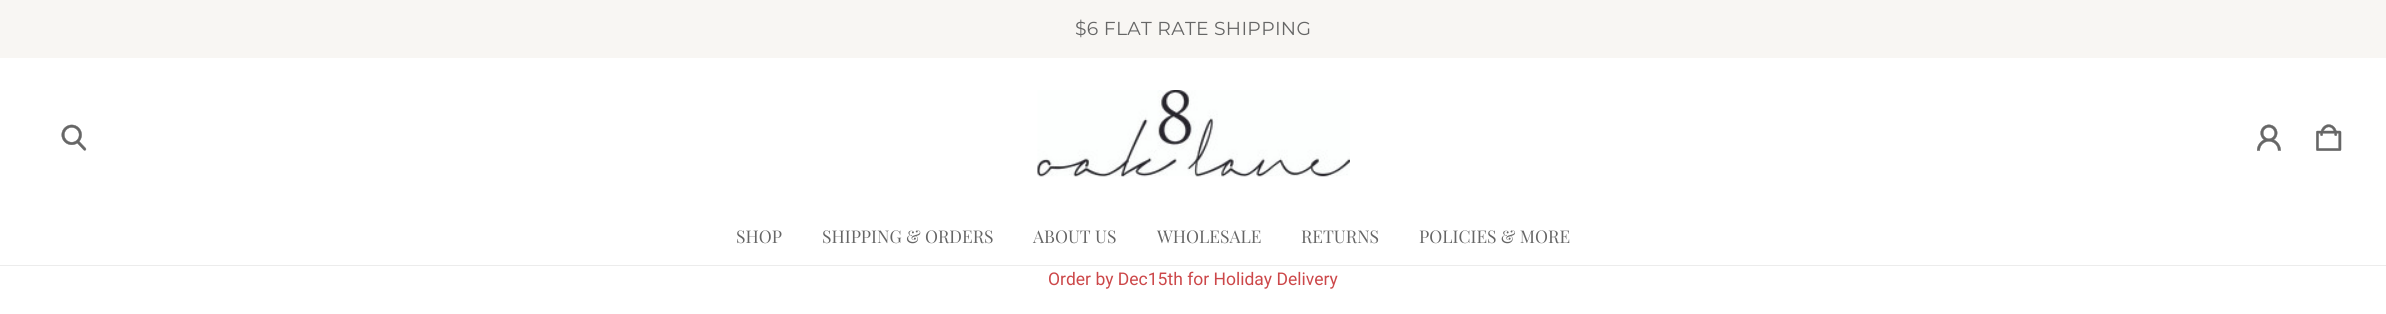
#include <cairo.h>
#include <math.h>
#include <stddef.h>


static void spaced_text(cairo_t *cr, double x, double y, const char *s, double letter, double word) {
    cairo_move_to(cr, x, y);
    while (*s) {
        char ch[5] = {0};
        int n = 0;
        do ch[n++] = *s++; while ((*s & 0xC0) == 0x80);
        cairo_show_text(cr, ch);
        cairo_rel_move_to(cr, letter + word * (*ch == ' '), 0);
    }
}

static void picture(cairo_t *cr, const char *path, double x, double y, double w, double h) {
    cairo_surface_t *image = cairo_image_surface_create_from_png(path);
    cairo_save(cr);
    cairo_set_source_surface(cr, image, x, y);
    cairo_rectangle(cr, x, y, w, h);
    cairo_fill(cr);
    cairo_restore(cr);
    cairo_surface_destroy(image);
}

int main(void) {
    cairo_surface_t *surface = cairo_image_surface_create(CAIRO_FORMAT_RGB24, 2386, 314);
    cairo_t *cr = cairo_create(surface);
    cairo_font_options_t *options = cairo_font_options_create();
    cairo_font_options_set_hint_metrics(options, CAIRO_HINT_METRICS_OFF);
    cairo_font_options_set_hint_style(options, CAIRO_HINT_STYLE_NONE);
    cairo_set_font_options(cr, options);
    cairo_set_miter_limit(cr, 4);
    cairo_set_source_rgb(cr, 1, 1, 1);
    cairo_paint(cr);
    cairo_set_source_rgb(cr, 0.922, 0.922, 0.922);
    cairo_rectangle(cr, 0, 265, 2386, 1);
    cairo_fill(cr);
    cairo_set_source_rgb(cr, 0.969, 0.961, 0.953);
    cairo_rectangle(cr, 0, 0, 2386, 58);
    cairo_fill(cr);
    cairo_select_font_face(cr, "Montserrat Thin", CAIRO_FONT_SLANT_NORMAL, CAIRO_FONT_WEIGHT_NORMAL);
    cairo_set_font_size(cr, 18.75);
    cairo_set_source_rgb(cr, 0.4, 0.4, 0.4);
    spaced_text(cr, 1075, 35, "$6 FLAT RATE SHIPPING", 0.3, 0);
    picture(cr, "img1.png", 61, 124, 26, 27);
    picture(cr, "img2.png", 1037, 90, 313, 87);
    picture(cr, "img3.png", 2257, 124, 24, 27);
    picture(cr, "img4.png", 2316, 124, 26, 27);
    cairo_select_font_face(cr, "Playfair Display", CAIRO_FONT_SLANT_NORMAL, CAIRO_FONT_WEIGHT_NORMAL);
    cairo_set_font_size(cr, 17.5);
    cairo_move_to(cr, 736, 243);
    cairo_show_text(cr, "SHOP");
    cairo_move_to(cr, 822, 243);
    cairo_show_text(cr, "SHIPPING & ORDERS");
    cairo_move_to(cr, 1033, 243);
    cairo_show_text(cr, "ABOUT US");
    cairo_move_to(cr, 1157, 243);
    cairo_show_text(cr, "WHOLESALE");
    cairo_move_to(cr, 1301, 243);
    cairo_show_text(cr, "RETURNS");
    cairo_move_to(cr, 1419, 243);
    cairo_show_text(cr, "POLICIES & MORE");
    cairo_select_font_face(cr, "Roboto", CAIRO_FONT_SLANT_NORMAL, CAIRO_FONT_WEIGHT_NORMAL);
    cairo_set_source_rgb(cr, 0.8, 0.278, 0.286);
    cairo_move_to(cr, 1048, 285);
    cairo_show_text(cr, "Order by Dec15th for Holiday Delivery");
    cairo_surface_write_to_png(surface, "page.png");
    cairo_font_options_destroy(options);
    cairo_destroy(cr);
    cairo_surface_destroy(surface);
    return 0;
}
